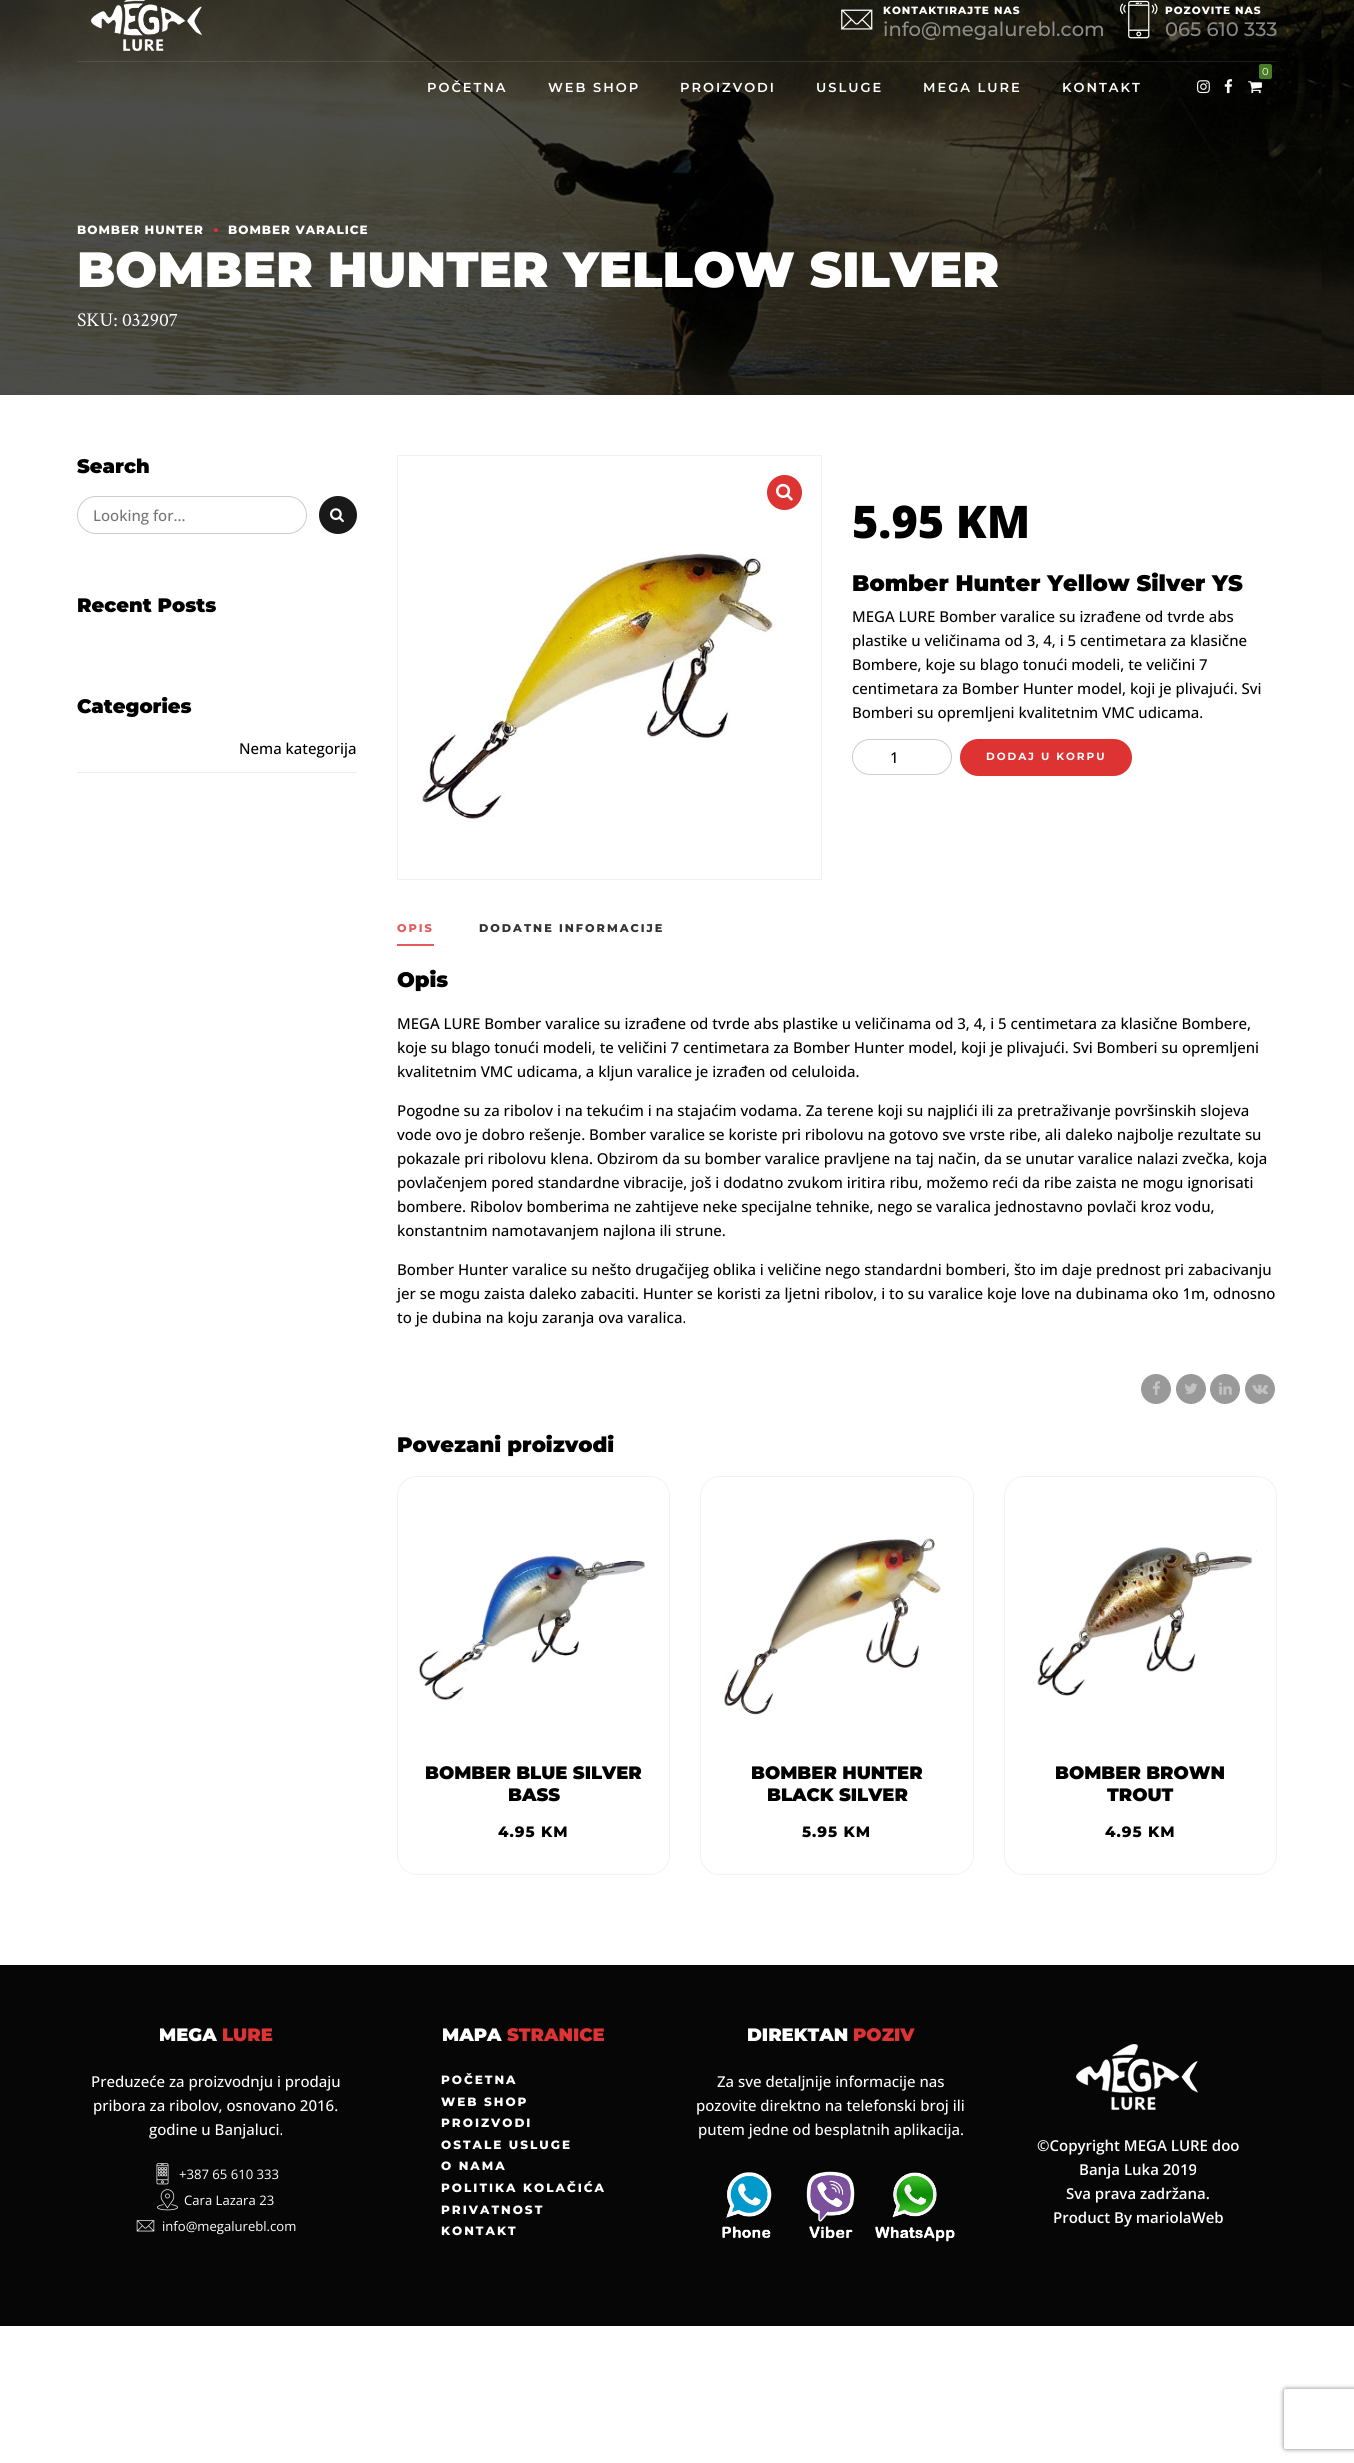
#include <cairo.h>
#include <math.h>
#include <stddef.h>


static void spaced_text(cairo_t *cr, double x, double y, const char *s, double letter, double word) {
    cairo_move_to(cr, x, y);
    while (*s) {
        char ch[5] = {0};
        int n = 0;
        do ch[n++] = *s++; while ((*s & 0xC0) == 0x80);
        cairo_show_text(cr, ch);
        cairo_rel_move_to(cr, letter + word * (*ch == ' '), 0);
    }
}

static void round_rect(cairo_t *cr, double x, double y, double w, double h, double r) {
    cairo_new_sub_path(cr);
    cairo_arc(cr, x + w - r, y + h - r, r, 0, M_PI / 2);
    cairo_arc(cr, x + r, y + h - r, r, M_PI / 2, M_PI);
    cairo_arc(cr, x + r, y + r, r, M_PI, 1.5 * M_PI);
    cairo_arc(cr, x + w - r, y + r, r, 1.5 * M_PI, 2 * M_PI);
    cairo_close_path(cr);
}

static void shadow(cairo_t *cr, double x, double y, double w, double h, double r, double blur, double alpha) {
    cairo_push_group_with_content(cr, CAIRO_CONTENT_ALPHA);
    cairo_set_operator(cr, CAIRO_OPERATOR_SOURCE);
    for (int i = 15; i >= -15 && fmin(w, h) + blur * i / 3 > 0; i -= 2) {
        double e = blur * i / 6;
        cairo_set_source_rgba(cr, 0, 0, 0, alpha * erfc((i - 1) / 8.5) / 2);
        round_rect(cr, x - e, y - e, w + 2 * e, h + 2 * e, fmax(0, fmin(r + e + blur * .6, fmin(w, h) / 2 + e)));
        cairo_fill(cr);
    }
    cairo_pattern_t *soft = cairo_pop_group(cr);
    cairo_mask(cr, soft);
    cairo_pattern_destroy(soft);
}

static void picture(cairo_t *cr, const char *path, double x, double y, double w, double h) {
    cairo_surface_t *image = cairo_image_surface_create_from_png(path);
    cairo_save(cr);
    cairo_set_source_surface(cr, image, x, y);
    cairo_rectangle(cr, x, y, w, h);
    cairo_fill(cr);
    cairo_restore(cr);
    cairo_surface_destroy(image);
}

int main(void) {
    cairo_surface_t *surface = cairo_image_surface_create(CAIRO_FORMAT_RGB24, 1354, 2463);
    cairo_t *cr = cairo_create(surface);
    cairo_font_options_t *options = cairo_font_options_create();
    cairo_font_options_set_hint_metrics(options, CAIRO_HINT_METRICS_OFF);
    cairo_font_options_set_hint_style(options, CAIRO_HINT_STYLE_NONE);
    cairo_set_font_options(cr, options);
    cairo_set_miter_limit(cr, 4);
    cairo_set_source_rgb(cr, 1, 1, 1);
    cairo_paint(cr);
    picture(cr, "img7.png", 0, 0, 1354, 395);
    picture(cr, "img1.png", 91, 0, 111, 51);
    picture(cr, "img2.png", 841, 9, 32, 21);
    cairo_select_font_face(cr, "Montserrat ExtraBold", CAIRO_FONT_SLANT_NORMAL, CAIRO_FONT_WEIGHT_NORMAL);
    cairo_set_font_size(cr, 10.5);
    cairo_set_source_rgb(cr, 1, 1, 1);
    spaced_text(cr, 883, 14, "KONTAKTIRAJTE NAS", 1, 0);
    cairo_select_font_face(cr, "Montserrat Medium", CAIRO_FONT_SLANT_NORMAL, CAIRO_FONT_WEIGHT_NORMAL);
    cairo_set_font_size(cr, 19.5);
    cairo_set_source_rgb(cr, 0.557, 0.553, 0.533);
    cairo_move_to(cr, 883, 36);
    cairo_show_text(cr, "info@megalurebl.com");
    picture(cr, "img3.png", 1120, 0, 38, 39);
    cairo_select_font_face(cr, "Montserrat ExtraBold", CAIRO_FONT_SLANT_NORMAL, CAIRO_FONT_WEIGHT_NORMAL);
    cairo_set_font_size(cr, 10.5);
    cairo_set_source_rgb(cr, 1, 1, 1);
    spaced_text(cr, 1165, 14, "POZOVITE NAS", 1, 0);
    cairo_select_font_face(cr, "Montserrat Medium", CAIRO_FONT_SLANT_NORMAL, CAIRO_FONT_WEIGHT_NORMAL);
    cairo_set_font_size(cr, 19.5);
    cairo_set_source_rgb(cr, 0.533, 0.529, 0.518);
    cairo_move_to(cr, 1165, 36);
    cairo_show_text(cr, "065 610 333");
    cairo_set_source_rgba(cr, 1, 1, 1, 0.1);
    cairo_rectangle(cr, 77, 61, 1200, 1);
    cairo_fill(cr);
    cairo_set_source_rgb(cr, 0.278, 0.486, 0.145);
    round_rect(cr, 1259, 64, 13, 15, 2);
    cairo_fill(cr);
    cairo_select_font_face(cr, "Montserrat", CAIRO_FONT_SLANT_NORMAL, CAIRO_FONT_WEIGHT_NORMAL);
    cairo_set_font_size(cr, 10);
    cairo_set_source_rgb(cr, 1, 1, 1);
    cairo_move_to(cr, 1262, 75);
    cairo_show_text(cr, "0");
    picture(cr, "img4.png", 1248, 81, 14, 13);
    picture(cr, "img5.png", 1197, 80, 13, 14);
    picture(cr, "img6.png", 1224, 79, 9, 15);
    cairo_select_font_face(cr, "Montserrat SemiBold", CAIRO_FONT_SLANT_NORMAL, CAIRO_FONT_WEIGHT_NORMAL);
    cairo_set_font_size(cr, 13);
    spaced_text(cr, 427, 92, "POČETNA", 2, 0);
    spaced_text(cr, 548, 92, "WEB SHOP", 2, 0);
    spaced_text(cr, 680, 92, "PROIZVODI", 2, 0);
    spaced_text(cr, 816, 92, "USLUGE", 2, 0);
    spaced_text(cr, 923, 92, "MEGA LURE", 2, 0);
    cairo_set_font_size(cr, 12);
    cairo_set_source_rgb(cr, 0.169, 0.153, 0.106);
    spaced_text(cr, 1099, 231, "A", 2, 0);
    cairo_set_font_size(cr, 13);
    cairo_set_source_rgb(cr, 1, 1, 1);
    spaced_text(cr, 1062, 92, "KONTAKT", 2, 0);
    cairo_select_font_face(cr, "Montserrat ExtraBold", CAIRO_FONT_SLANT_NORMAL, CAIRO_FONT_WEIGHT_NORMAL);
    cairo_set_font_size(cr, 12);
    spaced_text(cr, 77, 234, "BOMBER HUNTER", 1, 0);
    cairo_set_source_rgb(cr, 0.867, 0.2, 0.2);
    cairo_new_path(cr);
    cairo_arc(cr, 216, 230, 2, 0, 2 * M_PI);
    cairo_fill(cr);
    cairo_set_source_rgb(cr, 1, 1, 1);
    spaced_text(cr, 228, 234, "BOMBER VARALICE", 1, 0);
    cairo_select_font_face(cr, "Montserrat Black", CAIRO_FONT_SLANT_NORMAL, CAIRO_FONT_WEIGHT_NORMAL);
    cairo_set_font_size(cr, 49.5);
    cairo_move_to(cr, 77, 287);
    cairo_show_text(cr, "BOMBER HUNTER YELLOW SILVER");
    cairo_select_font_face(cr, "Crimson Text", CAIRO_FONT_SLANT_NORMAL, CAIRO_FONT_WEIGHT_NORMAL);
    cairo_set_font_size(cr, 19.5);
    cairo_move_to(cr, 77, 326);
    cairo_show_text(cr, "SKU: 032907");
    cairo_select_font_face(cr, "Montserrat Black", CAIRO_FONT_SLANT_NORMAL, CAIRO_FONT_WEIGHT_NORMAL);
    cairo_set_source_rgb(cr, 0, 0, 0);
    cairo_move_to(cr, 77, 473);
    cairo_show_text(cr, "Search");
    round_rect(cr, 77.5, 496.5, 229, 37, 18.5);
    cairo_set_source_rgb(cr, 0.8, 0.8, 0.8);
    cairo_set_line_width(cr, 1);
    cairo_stroke(cr);
    cairo_select_font_face(cr, "Open Sans Medium", CAIRO_FONT_SLANT_NORMAL, CAIRO_FONT_WEIGHT_NORMAL);
    cairo_set_font_size(cr, 15);
    cairo_set_source_rgb(cr, 0.459, 0.459, 0.459);
    cairo_move_to(cr, 93, 521);
    cairo_show_text(cr, "Looking for...");
    cairo_set_source_rgb(cr, 0.098, 0.098, 0.098);
    cairo_new_path(cr);
    cairo_arc(cr, 338, 515, 19, 0, 2 * M_PI);
    cairo_fill(cr);
    picture(cr, "img8.png", 330, 508, 14, 15);
    cairo_select_font_face(cr, "Montserrat Black", CAIRO_FONT_SLANT_NORMAL, CAIRO_FONT_WEIGHT_NORMAL);
    cairo_set_font_size(cr, 19.5);
    cairo_set_source_rgb(cr, 0, 0, 0);
    cairo_move_to(cr, 77, 612);
    cairo_show_text(cr, "Recent Posts");
    cairo_move_to(cr, 77, 713);
    cairo_show_text(cr, "Categories");
    cairo_set_source_rgb(cr, 0.929, 0.929, 0.929);
    cairo_rectangle(cr, 77, 772, 280, 1);
    cairo_fill(cr);
    cairo_select_font_face(cr, "Open Sans Medium", CAIRO_FONT_SLANT_NORMAL, CAIRO_FONT_WEIGHT_NORMAL);
    cairo_set_font_size(cr, 15);
    cairo_set_source_rgb(cr, 0, 0, 0);
    cairo_move_to(cr, 239, 754);
    cairo_show_text(cr, "Nema kategorija");
    cairo_rectangle(cr, 397.5, 455.5, 424, 424);
    cairo_set_source_rgb(cr, 0.949, 0.949, 0.949);
    cairo_stroke(cr);
    picture(cr, "img9.png", 421, 552, 355, 271);
    cairo_set_source_rgb(cr, 0.867, 0.2, 0.2);
    cairo_arc(cr, 784.5, 492.5, 17.5, 0, 2 * M_PI);
    cairo_fill(cr);
    picture(cr, "img10.png", 776, 483, 17, 18);
    cairo_select_font_face(cr, "Open Sans ExtraBold", CAIRO_FONT_SLANT_NORMAL, CAIRO_FONT_WEIGHT_NORMAL);
    cairo_set_font_size(cr, 45);
    cairo_set_source_rgb(cr, 0, 0, 0);
    cairo_move_to(cr, 852, 538);
    cairo_show_text(cr, "5.95 KM");
    cairo_select_font_face(cr, "Montserrat Black", CAIRO_FONT_SLANT_NORMAL, CAIRO_FONT_WEIGHT_NORMAL);
    cairo_set_font_size(cr, 22.5);
    cairo_move_to(cr, 852, 591);
    cairo_show_text(cr, "Bomber Hunter Yellow Silver YS");
    cairo_select_font_face(cr, "Open Sans Medium", CAIRO_FONT_SLANT_NORMAL, CAIRO_FONT_WEIGHT_NORMAL);
    cairo_set_font_size(cr, 15);
    cairo_move_to(cr, 852, 622);
    cairo_show_text(cr, "MEGA LURE Bomber varalice su izrađene od tvrde abs");
    cairo_move_to(cr, 852, 646);
    cairo_show_text(cr, "plastike u veličinama od 3, 4, i 5 centimetara za klasične");
    cairo_move_to(cr, 852, 670);
    cairo_show_text(cr, "Bombere, koje su blago tonući modeli, te veličini 7");
    cairo_move_to(cr, 852, 694);
    cairo_show_text(cr, "centimetara za Bomber Hunter model, koji je plivajući. Svi");
    cairo_move_to(cr, 852, 718);
    cairo_show_text(cr, "Bomberi su opremljeni kvalitetnim VMC udicama.");
    round_rect(cr, 852.5, 739.5, 99, 35, 17.5);
    cairo_set_source_rgb(cr, 0.8, 0.8, 0.8);
    cairo_stroke(cr);
    cairo_set_source_rgb(cr, 0, 0, 0);
    cairo_move_to(cr, 890, 763);
    cairo_show_text(cr, "1");
    cairo_set_source_rgb(cr, 0.867, 0.2, 0.2);
    round_rect(cr, 960, 739, 172, 37, 18.5);
    cairo_fill(cr);
    cairo_select_font_face(cr, "Montserrat", CAIRO_FONT_SLANT_NORMAL, CAIRO_FONT_WEIGHT_BOLD);
    cairo_set_font_size(cr, 10.5);
    cairo_set_source_rgb(cr, 1, 1, 1);
    spaced_text(cr, 986, 760, "DODAJ U KORPU", 2, 0);
    cairo_select_font_face(cr, "Montserrat ExtraBold", CAIRO_FONT_SLANT_NORMAL, CAIRO_FONT_WEIGHT_NORMAL);
    cairo_set_font_size(cr, 11.25);
    cairo_set_source_rgb(cr, 0.894, 0.361, 0.361);
    spaced_text(cr, 397, 932, "OPIS", 2, 0);
    cairo_rectangle(cr, 397, 944, 37, 2);
    cairo_fill(cr);
    cairo_set_source_rgb(cr, 0.2, 0.2, 0.2);
    spaced_text(cr, 479, 932, "DODATNE INFORMACIJE", 2, 0);
    cairo_select_font_face(cr, "Montserrat Black", CAIRO_FONT_SLANT_NORMAL, CAIRO_FONT_WEIGHT_NORMAL);
    cairo_set_font_size(cr, 21);
    cairo_set_source_rgb(cr, 0, 0, 0);
    cairo_move_to(cr, 397, 987);
    cairo_show_text(cr, "Opis");
    cairo_select_font_face(cr, "Open Sans Medium", CAIRO_FONT_SLANT_NORMAL, CAIRO_FONT_WEIGHT_NORMAL);
    cairo_set_font_size(cr, 15);
    cairo_move_to(cr, 397, 1029);
    cairo_show_text(cr, "MEGA LURE Bomber varalice su izrađene od tvrde abs plastike u veličinama od 3, 4, i 5 centimetara za klasične Bombere,");
    cairo_move_to(cr, 397, 1053);
    cairo_show_text(cr, "koje su blago tonući modeli, te veličini 7 centimetara za Bomber Hunter model, koji je plivajući. Svi Bomberi su opremljeni");
    cairo_move_to(cr, 397, 1077);
    cairo_show_text(cr, "kvalitetnim VMC udicama, a kljun varalice je izrađen od celuloida.");
    cairo_move_to(cr, 397, 1116);
    cairo_show_text(cr, "Pogodne su za ribolov i na tekućim i na stajaćim vodama. Za terene koji su najplići ili za pretraživanje površinskih slojeva");
    cairo_move_to(cr, 397, 1140);
    cairo_show_text(cr, "vode ovo je dobro rešenje. Bomber varalice se koriste pri ribolovu na gotovo sve vrste ribe, ali daleko najbolje rezultate su");
    cairo_move_to(cr, 397, 1164);
    cairo_show_text(cr, "pokazale pri ribolovu klena. Obzirom da su bomber varalice pravljene na taj način, da se unutar varalice nalazi zvečka, koja");
    cairo_move_to(cr, 397, 1188);
    cairo_show_text(cr, "povlačenjem pored standardne vibracije, još i dodatno zvukom iritira ribu, možemo reći da ribe zaista ne mogu ignorisati");
    cairo_move_to(cr, 397, 1212);
    cairo_show_text(cr, "bombere. Ribolov bomberima ne zahtijeve neke specijalne tehnike, nego se varalica jednostavno povlači kroz vodu,");
    cairo_move_to(cr, 397, 1236);
    cairo_show_text(cr, "konstantnim namotavanjem najlona ili strune.");
    cairo_move_to(cr, 397, 1275);
    cairo_show_text(cr, "Bomber Hunter varalice su nešto drugačijeg oblika i veličine nego standardni bomberi, što im daje prednost pri zabacivanju");
    cairo_move_to(cr, 397, 1299);
    cairo_show_text(cr, "jer se mogu zaista daleko zabaciti. Hunter se koristi za ljetni ribolov, i to su varalice koje love na dubinama oko 1m, odnosno");
    cairo_move_to(cr, 397, 1323);
    cairo_show_text(cr, "to je dubina na koju zaranja ova varalica.");
    cairo_set_source_rgb(cr, 0.6, 0.6, 0.6);
    cairo_new_path(cr);
    cairo_arc(cr, 1156, 1389, 15, 0, 2 * M_PI);
    cairo_fill(cr);
    picture(cr, "img11.png", 1152, 1381, 8, 14);
    cairo_arc(cr, 1191, 1389, 15, 0, 2 * M_PI);
    cairo_fill(cr);
    picture(cr, "img12.png", 1185, 1383, 13, 11);
    cairo_arc(cr, 1225, 1389, 15, 0, 2 * M_PI);
    cairo_fill(cr);
    picture(cr, "img13.png", 1219, 1382, 13, 13);
    cairo_arc(cr, 1260, 1389, 15, 0, 2 * M_PI);
    cairo_fill(cr);
    picture(cr, "img14.png", 1252, 1384, 16, 10);
    cairo_select_font_face(cr, "Montserrat Black", CAIRO_FONT_SLANT_NORMAL, CAIRO_FONT_WEIGHT_NORMAL);
    cairo_set_font_size(cr, 21);
    cairo_set_source_rgb(cr, 0, 0, 0);
    cairo_move_to(cr, 397, 1452);
    cairo_show_text(cr, "Povezani proizvodi");
    round_rect(cr, 397.5, 1476.5, 272, 398, 19.5);
    cairo_set_source_rgb(cr, 0.949, 0.949, 0.949);
    cairo_stroke(cr);
    picture(cr, "img15.png", 419, 1555, 226, 146);
    cairo_set_font_size(cr, 18);
    cairo_set_source_rgb(cr, 0, 0, 0);
    cairo_move_to(cr, 425, 1779);
    cairo_show_text(cr, "BOMBER BLUE SILVER");
    cairo_move_to(cr, 508, 1801);
    cairo_show_text(cr, "BASS");
    cairo_select_font_face(cr, "Montserrat ExtraBold", CAIRO_FONT_SLANT_NORMAL, CAIRO_FONT_WEIGHT_NORMAL);
    cairo_set_font_size(cr, 15);
    spaced_text(cr, 498, 1837, "4.95 KM", 1, 0);
    round_rect(cr, 700.5, 1476.5, 273, 398, 19.5);
    cairo_set_source_rgb(cr, 0.949, 0.949, 0.949);
    cairo_stroke(cr);
    picture(cr, "img16.png", 724, 1538, 217, 177);
    cairo_select_font_face(cr, "Montserrat Black", CAIRO_FONT_SLANT_NORMAL, CAIRO_FONT_WEIGHT_NORMAL);
    cairo_set_font_size(cr, 18);
    cairo_set_source_rgb(cr, 0, 0, 0);
    cairo_move_to(cr, 751, 1779);
    cairo_show_text(cr, "BOMBER HUNTER");
    cairo_move_to(cr, 767, 1801);
    cairo_show_text(cr, "BLACK SILVER");
    cairo_select_font_face(cr, "Montserrat ExtraBold", CAIRO_FONT_SLANT_NORMAL, CAIRO_FONT_WEIGHT_NORMAL);
    cairo_set_font_size(cr, 15);
    spaced_text(cr, 802, 1837, "5.95 KM", 1, 0);
    round_rect(cr, 1004.5, 1476.5, 272, 398, 19.5);
    cairo_set_source_rgb(cr, 0.949, 0.949, 0.949);
    cairo_stroke(cr);
    picture(cr, "img17.png", 1037, 1547, 220, 149);
    cairo_select_font_face(cr, "Montserrat Black", CAIRO_FONT_SLANT_NORMAL, CAIRO_FONT_WEIGHT_NORMAL);
    cairo_set_font_size(cr, 18);
    cairo_set_source_rgb(cr, 0, 0, 0);
    cairo_move_to(cr, 1055, 1779);
    cairo_show_text(cr, "BOMBER BROWN");
    cairo_move_to(cr, 1107, 1801);
    cairo_show_text(cr, "TROUT");
    cairo_select_font_face(cr, "Montserrat ExtraBold", CAIRO_FONT_SLANT_NORMAL, CAIRO_FONT_WEIGHT_NORMAL);
    cairo_set_font_size(cr, 15);
    spaced_text(cr, 1105, 1837, "4.95 KM", 1, 0);
    cairo_set_source_rgb(cr, 0.027, 0.027, 0.027);
    cairo_rectangle(cr, 0, 1965, 1354, 361);
    cairo_fill(cr);
    cairo_select_font_face(cr, "Montserrat Black", CAIRO_FONT_SLANT_NORMAL, CAIRO_FONT_WEIGHT_NORMAL);
    cairo_set_font_size(cr, 18);
    cairo_set_source_rgb(cr, 1, 1, 1);
    cairo_move_to(cr, 159, 2041);
    cairo_show_text(cr, "MEGA");
    cairo_set_source_rgb(cr, 0.867, 0.2, 0.2);
    cairo_move_to(cr, 222, 2041);
    cairo_show_text(cr, "LURE");
    cairo_select_font_face(cr, "Open Sans Medium", CAIRO_FONT_SLANT_NORMAL, CAIRO_FONT_WEIGHT_NORMAL);
    cairo_set_font_size(cr, 15);
    cairo_set_source_rgb(cr, 1, 1, 1);
    cairo_move_to(cr, 91, 2087);
    cairo_show_text(cr, "Preduzeće za proizvodnju i prodaju");
    cairo_move_to(cr, 93, 2111);
    cairo_show_text(cr, "pribora za ribolov, osnovano 2016.");
    cairo_move_to(cr, 149, 2135);
    cairo_show_text(cr, "godine u Banjaluci.");
    picture(cr, "img18.png", 156, 2163, 13, 22);
    cairo_select_font_face(cr, "Open Sans", CAIRO_FONT_SLANT_NORMAL, CAIRO_FONT_WEIGHT_NORMAL);
    cairo_set_font_size(cr, 13.1);
    cairo_move_to(cr, 179, 2179);
    cairo_show_text(cr, "+387 65 610 333");
    picture(cr, "img19.png", 157, 2189, 21, 22);
    cairo_move_to(cr, 184, 2205);
    cairo_show_text(cr, "Cara Lazara 23");
    picture(cr, "img20.png", 136, 2220, 19, 12);
    cairo_move_to(cr, 162, 2231);
    cairo_show_text(cr, "info@megalurebl.com");
    cairo_select_font_face(cr, "Montserrat Black", CAIRO_FONT_SLANT_NORMAL, CAIRO_FONT_WEIGHT_NORMAL);
    cairo_set_font_size(cr, 18);
    cairo_move_to(cr, 442, 2041);
    cairo_show_text(cr, "MAPA");
    cairo_set_source_rgb(cr, 0.867, 0.2, 0.2);
    cairo_move_to(cr, 507, 2041);
    cairo_show_text(cr, "STRANICE");
    cairo_select_font_face(cr, "Montserrat ExtraBold", CAIRO_FONT_SLANT_NORMAL, CAIRO_FONT_WEIGHT_NORMAL);
    cairo_set_font_size(cr, 12);
    cairo_set_source_rgb(cr, 1, 1, 1);
    spaced_text(cr, 441, 2084, "POČETNA", 2, 0);
    spaced_text(cr, 441, 2106, "WEB SHOP", 2, 0);
    spaced_text(cr, 441, 2127, "PROIZVODI", 2, 0);
    spaced_text(cr, 441, 2149, "OSTALE USLUGE", 2, 0);
    spaced_text(cr, 441, 2170, "O NAMA", 2, 0);
    spaced_text(cr, 441, 2192, "POLITIKA KOLAČIĆA", 2, 0);
    spaced_text(cr, 441, 2214, "PRIVATNOST", 2, 0);
    spaced_text(cr, 441, 2235, "KONTAKT", 2, 0);
    cairo_select_font_face(cr, "Montserrat Black", CAIRO_FONT_SLANT_NORMAL, CAIRO_FONT_WEIGHT_NORMAL);
    cairo_set_font_size(cr, 18);
    cairo_move_to(cr, 747, 2041);
    cairo_show_text(cr, "DIREKTAN");
    cairo_set_source_rgb(cr, 0.867, 0.2, 0.2);
    cairo_move_to(cr, 853, 2041);
    cairo_show_text(cr, "POZIV");
    cairo_select_font_face(cr, "Open Sans Medium", CAIRO_FONT_SLANT_NORMAL, CAIRO_FONT_WEIGHT_NORMAL);
    cairo_set_font_size(cr, 15);
    cairo_set_source_rgb(cr, 1, 1, 1);
    cairo_move_to(cr, 717, 2087);
    cairo_show_text(cr, "Za sve detaljnije informacije nas");
    cairo_move_to(cr, 696, 2111);
    cairo_show_text(cr, "pozovite direktno na telefonski broj ili");
    cairo_move_to(cr, 698, 2135);
    cairo_show_text(cr, "putem jedne od besplatnih aplikacija.");
    picture(cr, "img21.png", 722, 2172, 50, 66);
    picture(cr, "img22.png", 806, 2171, 49, 67);
    picture(cr, "img23.png", 875, 2172, 80, 70);
    picture(cr, "img24.png", 1076, 2044, 122, 66);
    cairo_select_font_face(cr, "Open Sans SemiBold", CAIRO_FONT_SLANT_NORMAL, CAIRO_FONT_WEIGHT_NORMAL);
    cairo_move_to(cr, 1037, 2151);
    cairo_show_text(cr, "©Copyright MEGA LURE doo");
    cairo_move_to(cr, 1079, 2175);
    cairo_show_text(cr, "Banja Luka 2019");
    cairo_move_to(cr, 1066, 2199);
    cairo_show_text(cr, "Sva prava zadržana.");
    cairo_move_to(cr, 1053, 2223);
    cairo_show_text(cr, "Product By mariolaWeb");
    cairo_save(cr);
    cairo_set_fill_rule(cr, CAIRO_FILL_RULE_EVEN_ODD);
    cairo_new_path(cr);
    cairo_move_to(cr, 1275, 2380);
    cairo_line_to(cr, 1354, 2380);
    cairo_line_to(cr, 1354, 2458);
    cairo_line_to(cr, 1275, 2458);
    cairo_close_path(cr);
    cairo_move_to(cr, 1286, 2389);
    cairo_line_to(cr, 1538, 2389);
    cairo_curve_to(cr, 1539, 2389, 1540, 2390, 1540, 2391);
    cairo_line_to(cr, 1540, 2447);
    cairo_curve_to(cr, 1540, 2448, 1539, 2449, 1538, 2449);
    cairo_line_to(cr, 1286, 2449);
    cairo_curve_to(cr, 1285, 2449, 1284, 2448, 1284, 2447);
    cairo_line_to(cr, 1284, 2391);
    cairo_curve_to(cr, 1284, 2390, 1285, 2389, 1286, 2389);
    cairo_close_path(cr);
    cairo_clip(cr);
    cairo_set_source_rgb(cr, 0.502, 0.502, 0.502);
    shadow(cr, 1284, 2389, 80, 60, 2, 2.5, 1);
    cairo_restore(cr);
    cairo_surface_write_to_png(surface, "page.png");
    cairo_font_options_destroy(options);
    cairo_destroy(cr);
    cairo_surface_destroy(surface);
    return 0;
}
